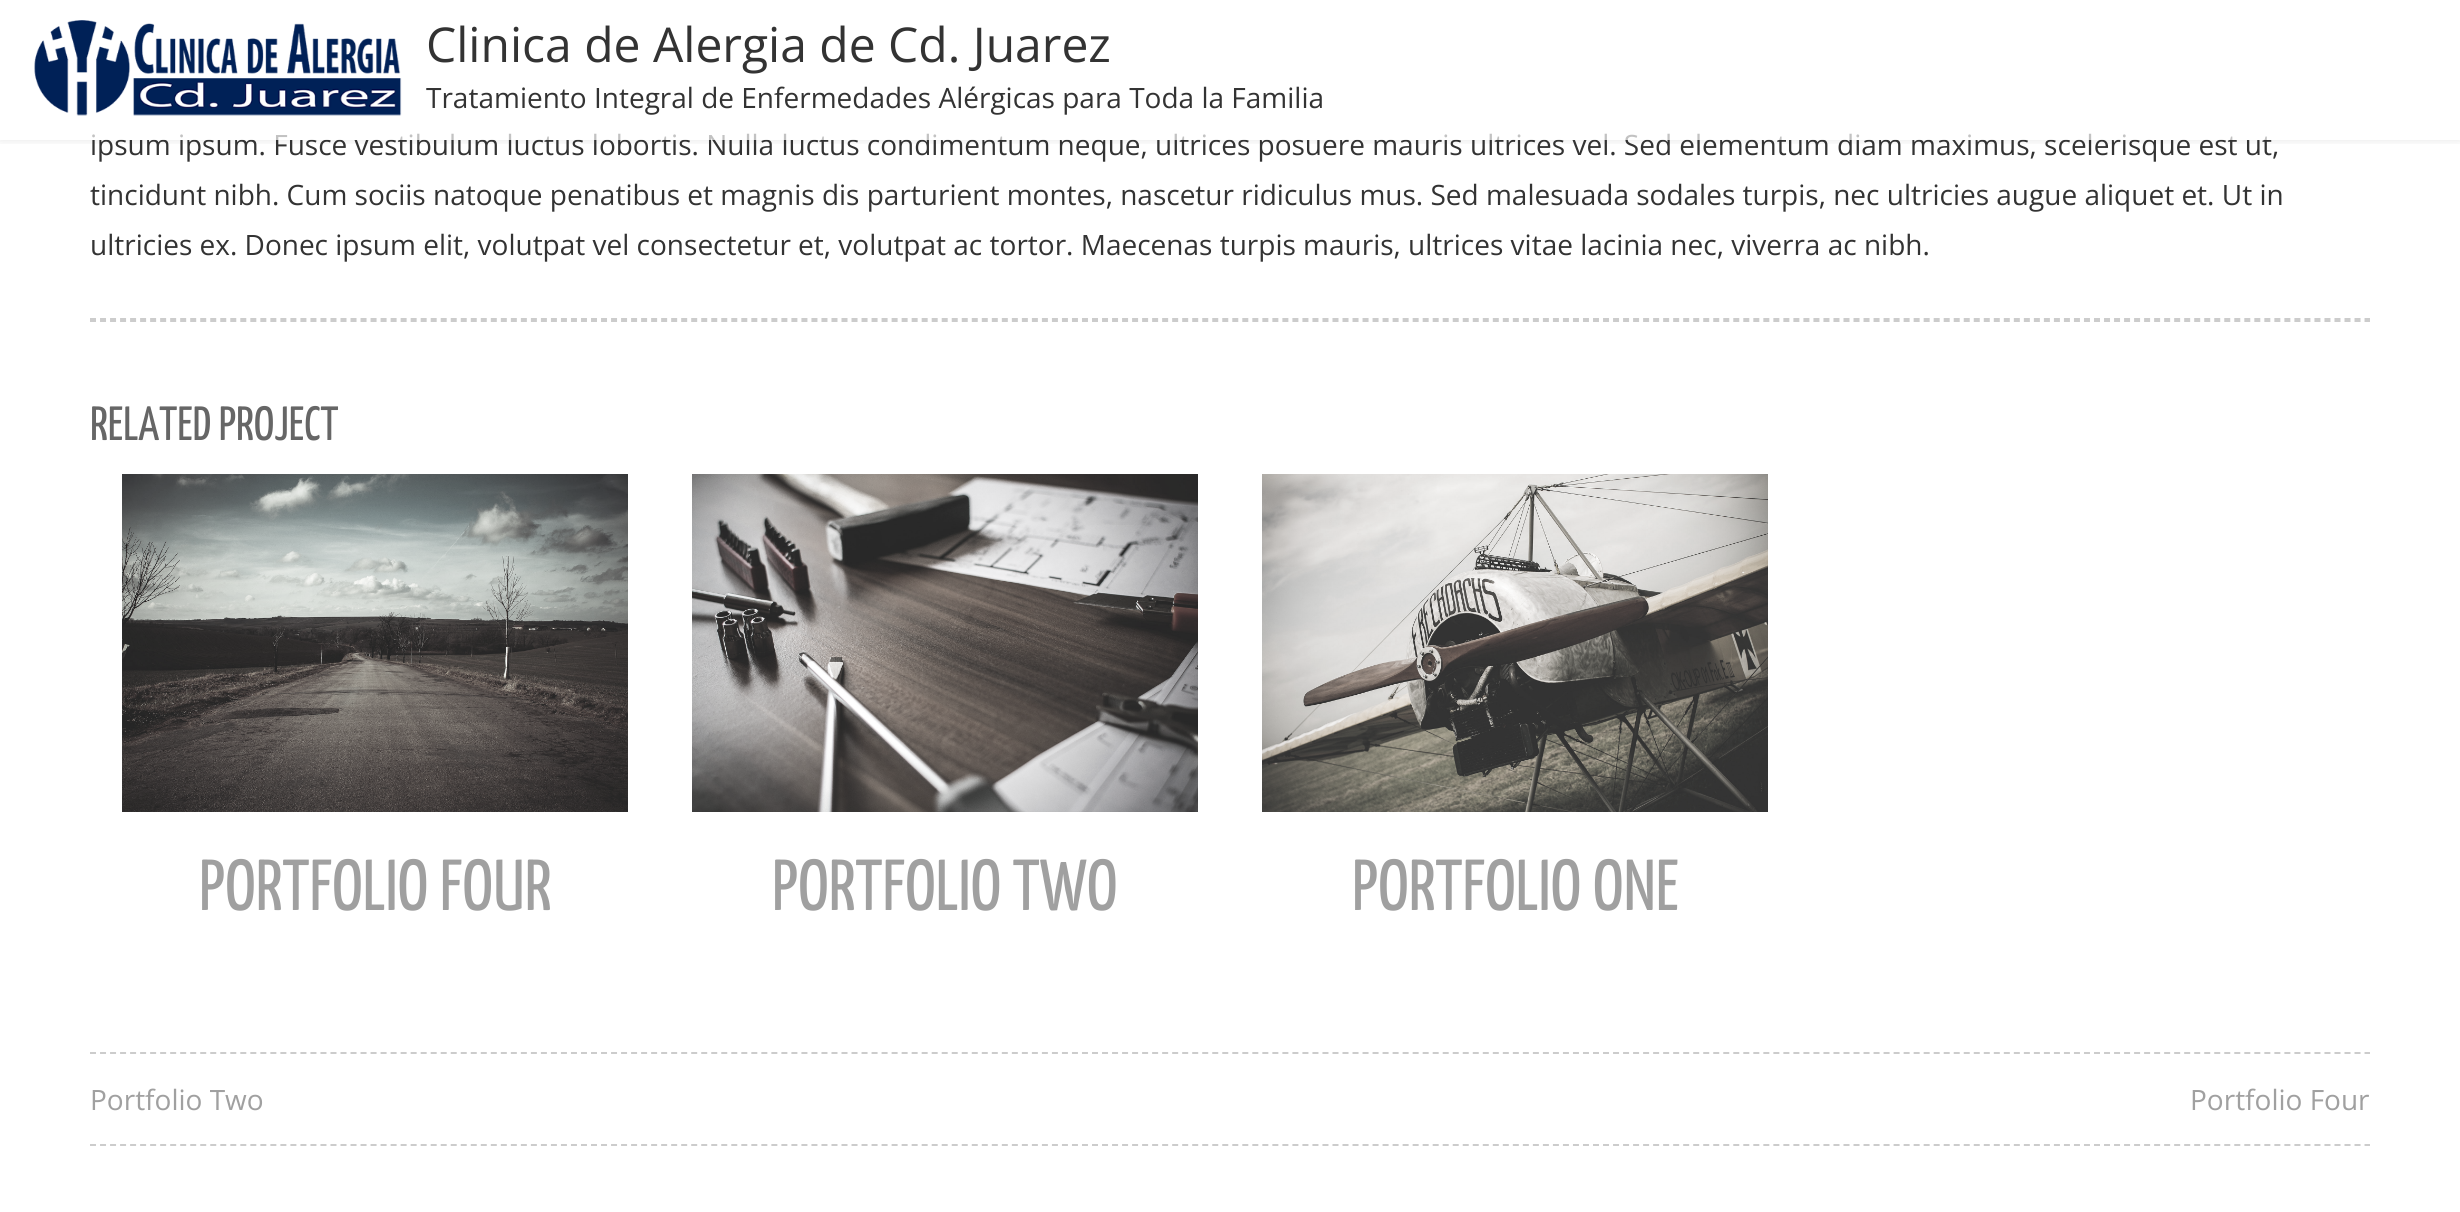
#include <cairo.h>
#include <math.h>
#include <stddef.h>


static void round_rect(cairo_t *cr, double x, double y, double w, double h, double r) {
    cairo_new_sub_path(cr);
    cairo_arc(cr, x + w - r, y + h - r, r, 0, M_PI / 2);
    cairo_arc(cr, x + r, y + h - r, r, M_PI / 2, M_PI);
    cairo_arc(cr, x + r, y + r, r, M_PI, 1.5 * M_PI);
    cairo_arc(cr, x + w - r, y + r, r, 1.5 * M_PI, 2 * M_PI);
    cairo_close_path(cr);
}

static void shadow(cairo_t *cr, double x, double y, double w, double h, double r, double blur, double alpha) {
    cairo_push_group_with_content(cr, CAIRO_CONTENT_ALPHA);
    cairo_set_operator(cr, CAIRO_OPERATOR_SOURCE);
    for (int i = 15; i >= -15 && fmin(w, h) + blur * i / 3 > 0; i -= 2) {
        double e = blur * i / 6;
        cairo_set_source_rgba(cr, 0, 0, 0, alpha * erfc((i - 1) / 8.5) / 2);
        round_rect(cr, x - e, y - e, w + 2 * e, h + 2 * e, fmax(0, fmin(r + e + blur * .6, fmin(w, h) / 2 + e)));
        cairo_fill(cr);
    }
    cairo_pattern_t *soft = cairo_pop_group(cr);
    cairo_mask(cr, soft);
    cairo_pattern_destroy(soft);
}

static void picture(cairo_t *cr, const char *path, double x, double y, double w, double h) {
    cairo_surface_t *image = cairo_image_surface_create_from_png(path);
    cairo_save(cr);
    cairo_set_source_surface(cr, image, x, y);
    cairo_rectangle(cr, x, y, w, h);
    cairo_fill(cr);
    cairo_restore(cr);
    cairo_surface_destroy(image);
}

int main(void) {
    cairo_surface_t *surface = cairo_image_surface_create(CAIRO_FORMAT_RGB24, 2460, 1212);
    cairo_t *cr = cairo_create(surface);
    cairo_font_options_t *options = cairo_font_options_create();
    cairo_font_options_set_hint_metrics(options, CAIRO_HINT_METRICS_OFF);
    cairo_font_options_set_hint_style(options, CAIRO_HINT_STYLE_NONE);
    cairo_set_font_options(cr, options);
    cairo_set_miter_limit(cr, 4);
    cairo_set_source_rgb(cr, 1, 1, 1);
    cairo_paint(cr);
    cairo_save(cr);
    cairo_rectangle(cr, 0, 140, 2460, 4);
    cairo_clip(cr);
    cairo_set_source_rgb(cr, 0, 0, 0);
    shadow(cr, 0, 0, 2460, 140, 0, 5, 0.1);
    cairo_restore(cr);
    cairo_select_font_face(cr, "Open Sans", CAIRO_FONT_SLANT_NORMAL, CAIRO_FONT_WEIGHT_NORMAL);
    cairo_set_font_size(cr, 28);
    cairo_set_source_rgb(cr, 0.2, 0.2, 0.2);
    cairo_move_to(cr, 90, 155);
    cairo_show_text(cr, "ipsum ipsum. Fusce vestibulum luctus lobortis. Nulla luctus condimentum neque, ultrices posuere mauris ultrices vel. Sed elementum diam maximus, scelerisque est ut,");
    cairo_set_source_rgba(cr, 1, 1, 1, 0.7);
    cairo_rectangle(cr, 92, 133, 2175, 7);
    cairo_fill(cr);
    picture(cr, "img1.png", 34, 20, 368, 96);
    cairo_set_font_size(cr, 48);
    cairo_set_source_rgb(cr, 0.2, 0.2, 0.2);
    cairo_move_to(cr, 426, 62);
    cairo_show_text(cr, "Clinica de Alergia de Cd. Juarez");
    cairo_set_font_size(cr, 28);
    cairo_move_to(cr, 426, 108);
    cairo_show_text(cr, "Tratamiento Integral de Enfermedades Alérgicas para Toda la Familia");
    cairo_move_to(cr, 90, 205);
    cairo_show_text(cr, "tincidunt nibh. Cum sociis natoque penatibus et magnis dis parturient montes, nascetur ridiculus mus. Sed malesuada sodales turpis, nec ultricies augue aliquet et. Ut in");
    cairo_move_to(cr, 90, 255);
    cairo_show_text(cr, "ultricies ex. Donec ipsum elit, volutpat vel consectetur et, volutpat ac tortor. Maecenas turpis mauris, ultrices vitae lacinia nec, viverra ac nibh.");
    cairo_new_path(cr);
    cairo_move_to(cr, 90, 319);
    cairo_line_to(cr, 2370, 319);
    cairo_set_source_rgb(cr, 0.8, 0.8, 0.8);
    cairo_set_dash(cr, (double[]){6, 4.02}, 2, 0);
    cairo_stroke(cr);
    cairo_new_path(cr);
    cairo_move_to(cr, 90, 321);
    cairo_line_to(cr, 2370, 321);
    cairo_stroke(cr);
    cairo_select_font_face(cr, "Yanone Kaffeesatz", CAIRO_FONT_SLANT_NORMAL, CAIRO_FONT_WEIGHT_NORMAL);
    cairo_set_font_size(cr, 48);
    cairo_set_source_rgb(cr, 0.4, 0.4, 0.4);
    cairo_move_to(cr, 90, 440);
    cairo_show_text(cr, "RELATED PROJECT");
    picture(cr, "img2.png", 122, 474, 506, 338);
    cairo_set_font_size(cr, 72);
    cairo_set_source_rgb(cr, 0.627, 0.627, 0.627);
    cairo_move_to(cr, 199, 910);
    cairo_show_text(cr, "PORTFOLIO FOUR");
    picture(cr, "img3.png", 692, 474, 506, 338);
    cairo_move_to(cr, 772, 910);
    cairo_show_text(cr, "PORTFOLIO TWO");
    picture(cr, "img4.png", 1262, 474, 506, 338);
    cairo_move_to(cr, 1352, 910);
    cairo_show_text(cr, "PORTFOLIO ONE");
    cairo_new_path(cr);
    cairo_move_to(cr, 90, 1053);
    cairo_line_to(cr, 2370, 1053);
    cairo_set_source_rgb(cr, 0.8, 0.8, 0.8);
    cairo_stroke(cr);
    cairo_new_path(cr);
    cairo_move_to(cr, 90, 1145);
    cairo_line_to(cr, 2370, 1145);
    cairo_stroke(cr);
    cairo_select_font_face(cr, "Open Sans", CAIRO_FONT_SLANT_NORMAL, CAIRO_FONT_WEIGHT_NORMAL);
    cairo_set_font_size(cr, 28);
    cairo_set_source_rgb(cr, 0.627, 0.627, 0.627);
    cairo_move_to(cr, 90, 1110);
    cairo_show_text(cr, "Portfolio Two");
    cairo_move_to(cr, 2190, 1110);
    cairo_show_text(cr, "Portfolio Four");
    cairo_surface_write_to_png(surface, "page.png");
    cairo_font_options_destroy(options);
    cairo_destroy(cr);
    cairo_surface_destroy(surface);
    return 0;
}
